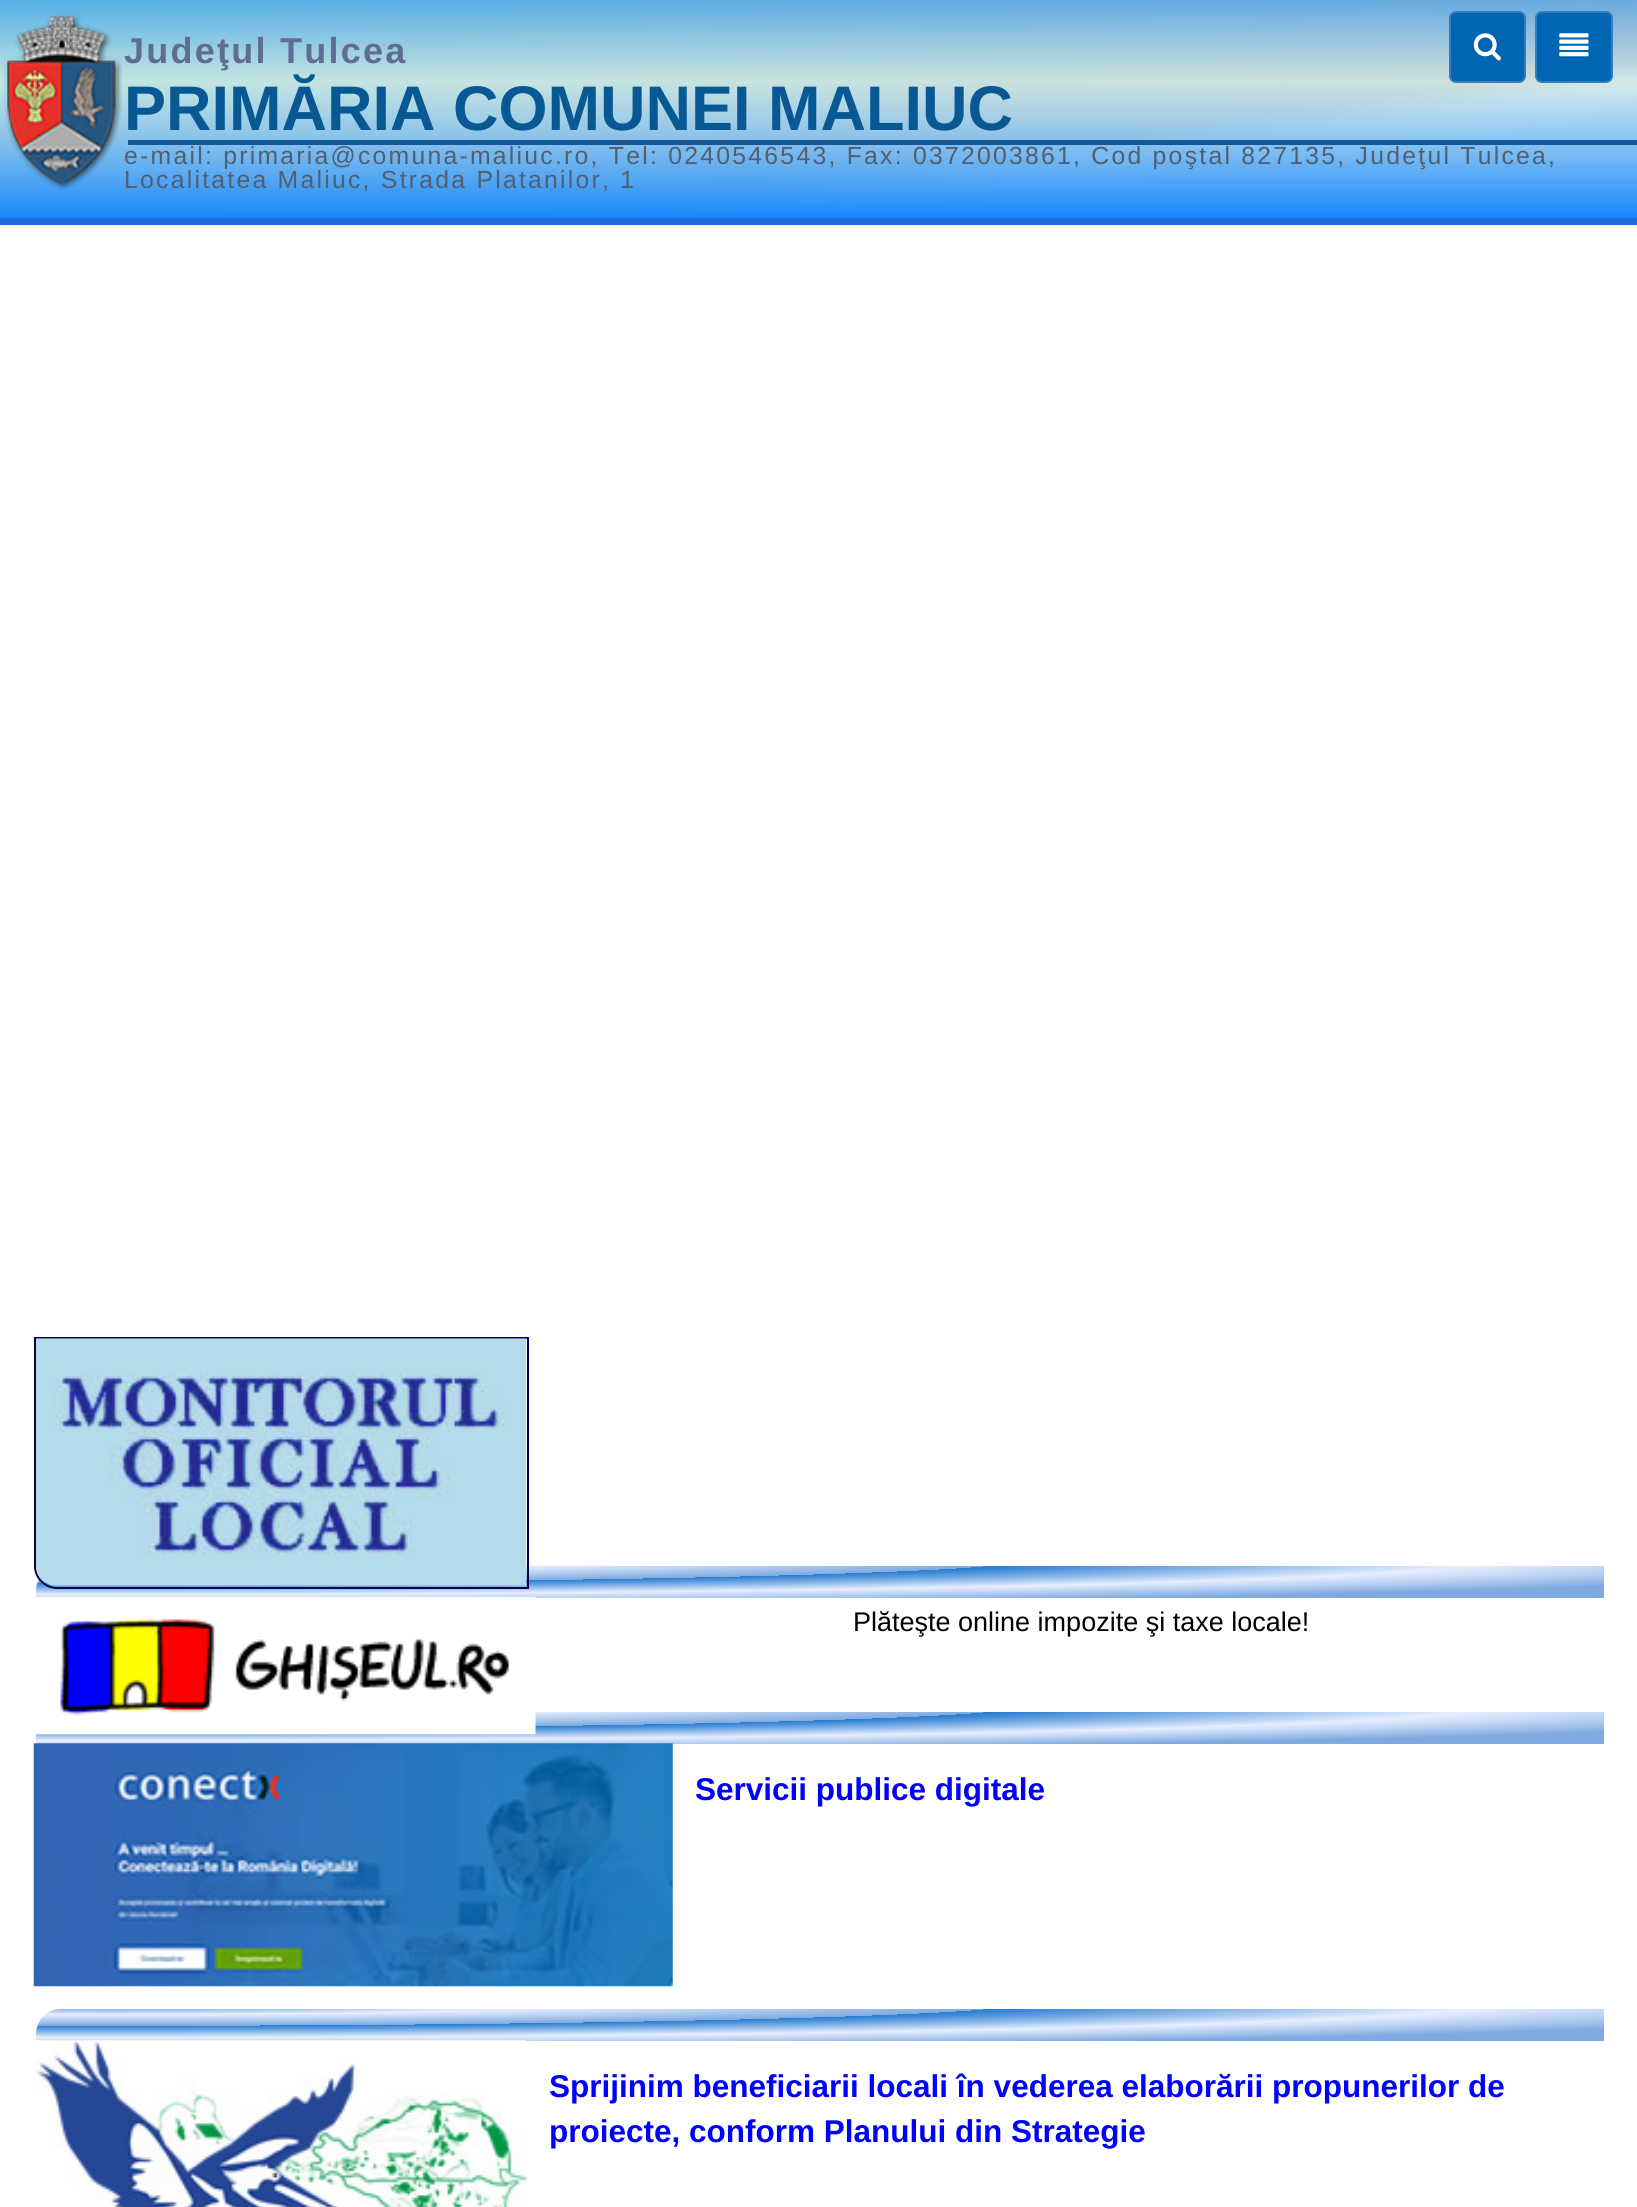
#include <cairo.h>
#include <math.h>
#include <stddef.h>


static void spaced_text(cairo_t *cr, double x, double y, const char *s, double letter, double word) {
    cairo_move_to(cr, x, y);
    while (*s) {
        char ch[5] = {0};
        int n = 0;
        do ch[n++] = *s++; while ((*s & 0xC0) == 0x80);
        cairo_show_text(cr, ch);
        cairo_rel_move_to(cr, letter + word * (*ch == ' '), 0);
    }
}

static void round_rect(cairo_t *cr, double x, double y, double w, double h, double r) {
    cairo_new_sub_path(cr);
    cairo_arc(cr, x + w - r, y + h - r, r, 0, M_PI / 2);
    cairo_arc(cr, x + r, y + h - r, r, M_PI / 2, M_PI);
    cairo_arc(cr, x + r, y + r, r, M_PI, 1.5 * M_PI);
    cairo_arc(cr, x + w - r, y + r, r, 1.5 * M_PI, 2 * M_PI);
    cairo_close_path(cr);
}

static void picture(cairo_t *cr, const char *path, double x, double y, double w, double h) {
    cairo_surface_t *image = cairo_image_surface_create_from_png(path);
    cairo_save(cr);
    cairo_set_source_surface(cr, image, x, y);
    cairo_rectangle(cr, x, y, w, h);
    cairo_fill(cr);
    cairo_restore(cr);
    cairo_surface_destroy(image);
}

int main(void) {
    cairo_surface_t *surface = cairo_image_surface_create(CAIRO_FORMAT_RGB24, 1637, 2207);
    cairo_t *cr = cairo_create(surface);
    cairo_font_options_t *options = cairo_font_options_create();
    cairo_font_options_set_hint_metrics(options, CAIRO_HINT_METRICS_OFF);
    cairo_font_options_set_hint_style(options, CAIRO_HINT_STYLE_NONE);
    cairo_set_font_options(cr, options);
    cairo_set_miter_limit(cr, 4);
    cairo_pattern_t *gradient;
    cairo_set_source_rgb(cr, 1, 1, 1);
    cairo_paint(cr);
    gradient = cairo_pattern_create_linear(788, -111, 850, 329);
    cairo_pattern_add_color_stop_rgba(gradient, 0, 0.157, 0.847, 0.647, 1);
    cairo_pattern_add_color_stop_rgba(gradient, 0.65, 0.714, 0.655, 0.459, 1);
    cairo_pattern_add_color_stop_rgba(gradient, 0.7, 0.933, 0.949, 0.898, 1);
    cairo_pattern_add_color_stop_rgba(gradient, 0.79, 0.722, 0.914, 1, 1);
    cairo_set_source(cr, gradient);
    cairo_pattern_destroy(gradient);
    cairo_rectangle(cr, 0, 0, 1637, 218);
    cairo_fill(cr);
    gradient = cairo_pattern_create_linear(819, 218, 819, -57);
    cairo_pattern_add_color_stop_rgba(gradient, 0, 0.843, 0.843, 0.875, 0.9);
    cairo_pattern_add_color_stop_rgba(gradient, 1, 0.894, 0.933, 0.949, 0.2);
    cairo_pattern_add_color_stop_rgba(gradient, 1, 0.267, 0.631, 0.478, 0.9);
    cairo_pattern_add_color_stop_rgba(gradient, 1, 0.502, 0.914, 0.376, 0.9);
    cairo_set_source(cr, gradient);
    cairo_pattern_destroy(gradient);
    cairo_rectangle(cr, 0, 0, 1637, 218);
    cairo_fill(cr);
    gradient = cairo_pattern_create_linear(819, 218, 819, -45);
    cairo_pattern_add_color_stop_rgba(gradient, 0, 0, 0.498, 1, 0.9);
    cairo_pattern_add_color_stop_rgba(gradient, 0.52, 0.816, 0.922, 0.933, 0.7);
    cairo_pattern_add_color_stop_rgba(gradient, 1, 0, 0.447, 1, 0.7);
    cairo_pattern_add_color_stop_rgba(gradient, 1, 0, 0.698, 1, 0.9);
    cairo_set_source(cr, gradient);
    cairo_pattern_destroy(gradient);
    cairo_rectangle(cr, 0, 0, 1637, 218);
    cairo_fill(cr);
    cairo_set_source_rgb(cr, 0.129, 0.424, 0.867);
    cairo_rectangle(cr, 0, 218, 1637, 7);
    cairo_fill(cr);
    cairo_set_source_rgb(cr, 0, 0.4, 0.702);
    round_rect(cr, 1450, 12, 75, 70, 6);
    cairo_fill_preserve(cr);
    cairo_set_source_rgb(cr, 0.208, 0.494, 0.741);
    cairo_stroke(cr);
    picture(cr, "img1.png", 1473, 33, 28, 28);
    cairo_set_source_rgb(cr, 0, 0.4, 0.702);
    round_rect(cr, 1536, 12, 76, 70, 6);
    cairo_fill_preserve(cr);
    cairo_set_source_rgb(cr, 0.208, 0.494, 0.741);
    cairo_stroke(cr);
    picture(cr, "img2.png", 1559, 33, 30, 24);
    picture(cr, "img3.png", 3, 13, 120, 178);
    cairo_select_font_face(cr, "Liberation Sans", CAIRO_FONT_SLANT_NORMAL, CAIRO_FONT_WEIGHT_BOLD);
    cairo_set_font_size(cr, 36);
    cairo_set_source_rgb(cr, 0.373, 0.427, 0.573);
    spaced_text(cr, 124, 63, "Judeţul Tulcea", 2.25, 0);
    cairo_set_font_size(cr, 63);
    cairo_set_source_rgb(cr, 0.035, 0.345, 0.58);
    cairo_move_to(cr, 124, 130);
    cairo_show_text(cr, "PRIMĂRIA COMUNEI MALIUC");
    cairo_set_source_rgb(cr, 0.082, 0.341, 0.6);
    cairo_rectangle(cr, 128, 140, 1509, 5);
    cairo_fill(cr);
    cairo_select_font_face(cr, "Liberation Sans", CAIRO_FONT_SLANT_NORMAL, CAIRO_FONT_WEIGHT_NORMAL);
    cairo_set_font_size(cr, 24.75);
    cairo_set_source_rgb(cr, 0.322, 0.369, 0.439);
    spaced_text(cr, 124, 164, "e-mail: primaria@comuna-maliuc.ro, Tel: 0240546543, Fax: 0372003861, Cod poştal 827135, Judeţul Tulcea,", 2.25, 0);
    spaced_text(cr, 124, 188, "Localitatea Maliuc, Strada Platanilor, 1", 2.25, 0);
    gradient = cairo_pattern_create_radial(0, 0, 0, 0, 0, 1);
    cairo_pattern_set_matrix(gradient, &(cairo_matrix_t){1.0 / 2108, 0, 0, 1.0 / 53, -1.0 * 114 / 2108, -1.0 * 1560 / 53});
    cairo_pattern_add_color_stop_rgba(gradient, 0, 0.157, 0.49, 0.82, 1);
    cairo_pattern_add_color_stop_rgba(gradient, 0.22, 0.902, 0.933, 1, 1);
    cairo_pattern_add_color_stop_rgba(gradient, 0.43, 0.494, 0.667, 0.878, 1);
    cairo_pattern_add_color_stop_rgba(gradient, 0.43, 0.157, 0.49, 0.82, 1);
    cairo_pattern_add_color_stop_rgba(gradient, 0.65, 0.902, 0.933, 1, 1);
    cairo_pattern_add_color_stop_rgba(gradient, 0.86, 0.494, 0.667, 0.878, 1);
    cairo_set_source(cr, gradient);
    cairo_pattern_destroy(gradient);
    cairo_new_path(cr);
    cairo_move_to(cr, 61, 1566);
    cairo_line_to(cr, 1604, 1566);
    cairo_line_to(cr, 1604, 1598);
    cairo_line_to(cr, 38, 1598);
    cairo_curve_to(cr, 37, 1598, 36, 1597, 36, 1596);
    cairo_line_to(cr, 36, 1591);
    cairo_curve_to(cr, 36, 1577, 47, 1566, 61, 1566);
    cairo_close_path(cr);
    cairo_fill(cr);
    cairo_new_path(cr);
    cairo_move_to(cr, 35, 1338);
    cairo_line_to(cr, 528, 1338);
    cairo_line_to(cr, 528, 1588);
    cairo_line_to(cr, 57, 1588);
    cairo_curve_to(cr, 45, 1588, 35, 1578, 35, 1566);
    cairo_close_path(cr);
    cairo_set_source_rgb(cr, 0.027, 0, 0.31);
    cairo_stroke(cr);
    picture(cr, "img4.png", 36, 1338, 491, 248);
    gradient = cairo_pattern_create_radial(0, 0, 0, 0, 0, 1);
    cairo_pattern_set_matrix(gradient, &(cairo_matrix_t){1.0 / 2108, 0, 0, 1.0 / 53, -1.0 * 114 / 2108, -1.0 * 1706 / 53});
    cairo_pattern_add_color_stop_rgba(gradient, 0, 0.157, 0.49, 0.82, 1);
    cairo_pattern_add_color_stop_rgba(gradient, 0.22, 0.902, 0.933, 1, 1);
    cairo_pattern_add_color_stop_rgba(gradient, 0.43, 0.494, 0.667, 0.878, 1);
    cairo_pattern_add_color_stop_rgba(gradient, 0.43, 0.157, 0.49, 0.82, 1);
    cairo_pattern_add_color_stop_rgba(gradient, 0.65, 0.902, 0.933, 1, 1);
    cairo_pattern_add_color_stop_rgba(gradient, 0.86, 0.494, 0.667, 0.878, 1);
    cairo_set_source(cr, gradient);
    cairo_pattern_destroy(gradient);
    cairo_new_path(cr);
    cairo_move_to(cr, 61, 1712);
    cairo_line_to(cr, 1604, 1712);
    cairo_line_to(cr, 1604, 1744);
    cairo_line_to(cr, 38, 1744);
    cairo_curve_to(cr, 37, 1744, 36, 1743, 36, 1742);
    cairo_line_to(cr, 36, 1737);
    cairo_curve_to(cr, 36, 1723, 47, 1712, 61, 1712);
    cairo_close_path(cr);
    cairo_fill(cr);
    picture(cr, "img5.png", 36, 1597, 500, 138);
    cairo_set_font_size(cr, 27);
    cairo_set_source_rgb(cr, 0, 0, 0);
    cairo_move_to(cr, 853, 1631);
    cairo_show_text(cr, "Plăteşte online impozite şi taxe locale!");
    picture(cr, "img6.png", 33, 1743, 640, 244);
    cairo_select_font_face(cr, "Liberation Sans", CAIRO_FONT_SLANT_NORMAL, CAIRO_FONT_WEIGHT_BOLD);
    cairo_set_font_size(cr, 31.5);
    cairo_set_source_rgb(cr, 0, 0, 1);
    cairo_move_to(cr, 695, 1800);
    cairo_show_text(cr, "Servicii publice digitale");
    gradient = cairo_pattern_create_radial(0, 0, 0, 0, 0, 1);
    cairo_pattern_set_matrix(gradient, &(cairo_matrix_t){1.0 / 2108, 0, 0, 1.0 / 53, -1.0 * 114 / 2108, -1.0 * 2003 / 53});
    cairo_pattern_add_color_stop_rgba(gradient, 0, 0.157, 0.49, 0.82, 1);
    cairo_pattern_add_color_stop_rgba(gradient, 0.22, 0.902, 0.933, 1, 1);
    cairo_pattern_add_color_stop_rgba(gradient, 0.43, 0.494, 0.667, 0.878, 1);
    cairo_pattern_add_color_stop_rgba(gradient, 0.43, 0.157, 0.49, 0.82, 1);
    cairo_pattern_add_color_stop_rgba(gradient, 0.65, 0.902, 0.933, 1, 1);
    cairo_pattern_add_color_stop_rgba(gradient, 0.86, 0.494, 0.667, 0.878, 1);
    cairo_set_source(cr, gradient);
    cairo_pattern_destroy(gradient);
    cairo_new_path(cr);
    cairo_move_to(cr, 61, 2009);
    cairo_line_to(cr, 1604, 2009);
    cairo_line_to(cr, 1604, 2041);
    cairo_line_to(cr, 38, 2041);
    cairo_curve_to(cr, 37, 2041, 36, 2040, 36, 2039);
    cairo_line_to(cr, 36, 2034);
    cairo_curve_to(cr, 36, 2020, 47, 2009, 61, 2009);
    cairo_close_path(cr);
    cairo_fill(cr);
    picture(cr, "img7.png", 34, 2040, 493, 167);
    cairo_set_source_rgb(cr, 0, 0, 1);
    cairo_move_to(cr, 549, 2097);
    cairo_show_text(cr, "Sprijinim beneficiarii locali în vederea elaborării propunerilor de");
    cairo_move_to(cr, 549, 2142);
    cairo_show_text(cr, "proiecte, conform Planului din Strategie");
    cairo_surface_write_to_png(surface, "page.png");
    cairo_font_options_destroy(options);
    cairo_destroy(cr);
    cairo_surface_destroy(surface);
    return 0;
}
